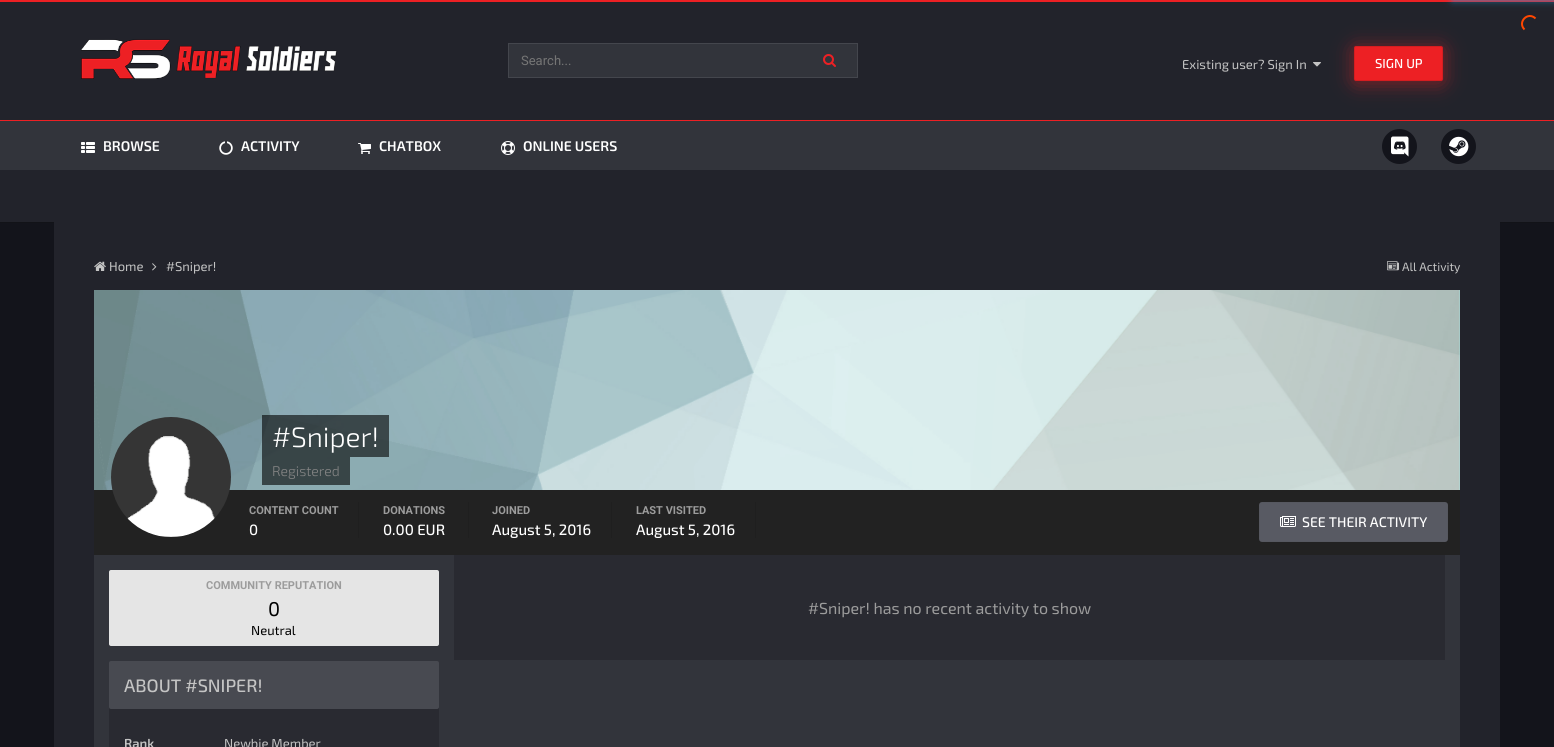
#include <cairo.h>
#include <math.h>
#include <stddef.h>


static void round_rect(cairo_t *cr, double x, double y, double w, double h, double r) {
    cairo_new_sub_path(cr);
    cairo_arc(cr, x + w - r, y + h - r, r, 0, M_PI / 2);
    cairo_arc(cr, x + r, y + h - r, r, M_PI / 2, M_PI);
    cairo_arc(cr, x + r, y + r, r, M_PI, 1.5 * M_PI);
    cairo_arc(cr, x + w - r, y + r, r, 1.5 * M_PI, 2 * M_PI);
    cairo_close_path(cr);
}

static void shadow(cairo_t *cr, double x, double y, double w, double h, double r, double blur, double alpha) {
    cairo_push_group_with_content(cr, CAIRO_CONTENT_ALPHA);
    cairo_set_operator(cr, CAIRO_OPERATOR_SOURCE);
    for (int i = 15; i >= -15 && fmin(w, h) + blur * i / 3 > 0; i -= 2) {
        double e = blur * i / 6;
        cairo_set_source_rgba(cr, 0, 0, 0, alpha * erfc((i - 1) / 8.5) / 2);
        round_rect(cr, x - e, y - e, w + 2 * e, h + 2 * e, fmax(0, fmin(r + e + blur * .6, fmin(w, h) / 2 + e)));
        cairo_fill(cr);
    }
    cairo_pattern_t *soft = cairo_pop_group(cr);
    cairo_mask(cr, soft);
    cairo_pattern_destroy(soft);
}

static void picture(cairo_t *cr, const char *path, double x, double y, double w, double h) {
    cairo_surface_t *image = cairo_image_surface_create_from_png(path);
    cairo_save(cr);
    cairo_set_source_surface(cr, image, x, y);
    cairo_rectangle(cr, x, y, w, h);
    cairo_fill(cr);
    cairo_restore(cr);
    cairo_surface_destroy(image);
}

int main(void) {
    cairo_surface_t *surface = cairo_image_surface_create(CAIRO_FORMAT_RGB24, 1554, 747);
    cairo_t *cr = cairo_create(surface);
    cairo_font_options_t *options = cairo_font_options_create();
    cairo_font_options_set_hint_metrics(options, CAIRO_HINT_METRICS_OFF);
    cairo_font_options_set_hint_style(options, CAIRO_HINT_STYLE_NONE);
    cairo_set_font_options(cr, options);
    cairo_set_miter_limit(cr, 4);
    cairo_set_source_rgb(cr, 0.078, 0.082, 0.106);
    cairo_paint(cr);
    cairo_set_source_rgb(cr, 0.929, 0.125, 0.141);
    cairo_rectangle(cr, 0, 0, 1554, 2);
    cairo_fill(cr);
    cairo_set_source_rgb(cr, 0.133, 0.137, 0.169);
    cairo_rectangle(cr, 0, 2, 1554, 118);
    cairo_fill(cr);
    cairo_set_source_rgb(cr, 0.133, 0.6, 0.867);
    shadow(cr, 1454, -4, 100, 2, 0, 2.5, 1);
    shadow(cr, 1454, -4, 100, 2, 0, 5, 1);
    cairo_new_path(cr);
    cairo_move_to(cr, 1524.5, 29.5);
    cairo_curve_to(cr, 1517, 22, 1528, 11, 1535.5, 18.5);
    cairo_set_source_rgb(cr, 1, 0.278, 0);
    cairo_stroke(cr);
    cairo_set_source_rgb(cr, 0.071, 0.075, 0.094);
    cairo_rectangle(cr, 0, 222, 1554, 1);
    cairo_fill(cr);
    picture(cr, "img1.png", 81, 39, 256, 40);
    cairo_set_source_rgb(cr, 0.196, 0.204, 0.231);
    cairo_rectangle(cr, 508.5, 43.5, 349, 34);
    cairo_fill_preserve(cr);
    cairo_set_source_rgb(cr, 0.267, 0.275, 0.302);
    cairo_set_line_width(cr, 1);
    cairo_stroke(cr);
    cairo_select_font_face(cr, "Roboto", CAIRO_FONT_SLANT_NORMAL, CAIRO_FONT_WEIGHT_NORMAL);
    cairo_set_font_size(cr, 13);
    cairo_set_source_rgb(cr, 0.459, 0.459, 0.459);
    cairo_move_to(cr, 521, 65);
    cairo_show_text(cr, "Search...");
    picture(cr, "img2.png", 823, 54, 13, 13);
    cairo_select_font_face(cr, "Exo 2", CAIRO_FONT_SLANT_NORMAL, CAIRO_FONT_WEIGHT_NORMAL);
    cairo_set_source_rgb(cr, 0.769, 0.769, 0.769);
    cairo_move_to(cr, 1182, 69);
    cairo_show_text(cr, "Existing user? Sign In");
    picture(cr, "img3.png", 1313, 62, 8, 5);
    cairo_set_source_rgb(cr, 0.929, 0.125, 0.141);
    shadow(cr, 1354, 48, 89, 35, 2, 10, 0.5);
    cairo_set_source_rgb(cr, 0.929, 0.125, 0.141);
    round_rect(cr, 1354, 46, 89, 35, 2);
    cairo_fill(cr);
    round_rect(cr, 1354.5, 46.5, 88, 34, 1.5);
    cairo_set_source_rgba(cr, 0, 0, 0, 0.1);
    cairo_stroke(cr);
    cairo_select_font_face(cr, "Exo 2 Medium", CAIRO_FONT_SLANT_NORMAL, CAIRO_FONT_WEIGHT_NORMAL);
    cairo_set_source_rgb(cr, 1, 1, 1);
    cairo_move_to(cr, 1375, 68);
    cairo_show_text(cr, "SIGN UP");
    cairo_set_source_rgb(cr, 0.196, 0.204, 0.231);
    cairo_rectangle(cr, 0, 121, 1554, 49);
    cairo_fill(cr);
    cairo_set_source_rgb(cr, 0.929, 0.125, 0.141);
    cairo_rectangle(cr, 0, 120, 1554, 1);
    cairo_fill(cr);
    cairo_set_source_rgb(cr, 0.078, 0.082, 0.106);
    cairo_arc(cr, 1399.5, 146.5, 17.5, 0, 2 * M_PI);
    cairo_fill(cr);
    picture(cr, "img4.png", 1391, 136, 18, 21);
    cairo_arc(cr, 1458.5, 146.5, 17.5, 0, 2 * M_PI);
    cairo_fill(cr);
    picture(cr, "img5.png", 1449, 136, 20, 21);
    cairo_set_source_rgb(cr, 0.133, 0.137, 0.169);
    cairo_rectangle(cr, 0, 170, 1554, 52);
    cairo_fill(cr);
    picture(cr, "img6.png", 81, 142, 14, 11);
    cairo_select_font_face(cr, "Exo 2 SemiBold", CAIRO_FONT_SLANT_NORMAL, CAIRO_FONT_WEIGHT_NORMAL);
    cairo_set_font_size(cr, 14);
    cairo_set_source_rgb(cr, 1, 1, 1);
    cairo_move_to(cr, 103, 151);
    cairo_show_text(cr, "BROWSE");
    picture(cr, "img7.png", 219, 141, 14, 14);
    cairo_move_to(cr, 241, 151);
    cairo_show_text(cr, "ACTIVITY");
    picture(cr, "img8.png", 358, 143, 13, 11);
    cairo_move_to(cr, 379, 151);
    cairo_show_text(cr, "CHATBOX");
    picture(cr, "img9.png", 501, 141, 14, 14);
    cairo_move_to(cr, 523, 151);
    cairo_show_text(cr, "ONLINE USERS");
    cairo_set_source_rgb(cr, 0.133, 0.137, 0.169);
    cairo_rectangle(cr, 54, 222, 1446, 525);
    cairo_fill(cr);
    picture(cr, "img10.png", 94, 261, 12, 10);
    cairo_select_font_face(cr, "Exo 2", CAIRO_FONT_SLANT_NORMAL, CAIRO_FONT_WEIGHT_NORMAL);
    cairo_set_font_size(cr, 13);
    cairo_set_source_rgb(cr, 0.769, 0.769, 0.769);
    cairo_move_to(cr, 109, 271);
    cairo_show_text(cr, "Home");
    picture(cr, "img11.png", 152, 263, 5, 8);
    cairo_move_to(cr, 166, 271);
    cairo_show_text(cr, "#Sniper!");
    picture(cr, "img12.png", 1387, 261, 12, 10);
    cairo_set_font_size(cr, 12);
    cairo_move_to(cr, 1402, 271);
    cairo_show_text(cr, "All Activity");
    cairo_set_source_rgb(cr, 0.196, 0.204, 0.231);
    cairo_rectangle(cr, 94, 555, 1366, 192);
    cairo_fill(cr);
    cairo_set_source_rgb(cr, 0.6, 0.98, 1);
    cairo_rectangle(cr, 94, 290, 1366, 200);
    cairo_fill(cr);
    picture(cr, "img13.png", 94, 290, 1366, 200);
    cairo_set_source_rgb(cr, 0.133, 0.133, 0.133);
    cairo_rectangle(cr, 94, 490, 1366, 65);
    cairo_fill(cr);
    picture(cr, "img14.png", 111, 417, 120, 120);
    cairo_set_source_rgba(cr, 0, 0, 0, 0.6);
    cairo_rectangle(cr, 262, 415, 127, 42);
    cairo_fill(cr);
    cairo_select_font_face(cr, "Exo 2 Light", CAIRO_FONT_SLANT_NORMAL, CAIRO_FONT_WEIGHT_NORMAL);
    cairo_set_font_size(cr, 28);
    cairo_set_source_rgb(cr, 1, 1, 1);
    cairo_move_to(cr, 272, 447);
    cairo_show_text(cr, "#Sniper!");
    cairo_set_source_rgba(cr, 0, 0, 0, 0.6);
    cairo_rectangle(cr, 262, 457, 88, 28);
    cairo_fill(cr);
    cairo_set_font_size(cr, 14);
    cairo_set_source_rgb(cr, 0.522, 0.522, 0.522);
    cairo_move_to(cr, 272, 476);
    cairo_show_text(cr, "Registered");
    cairo_set_source_rgb(cr, 0.122, 0.122, 0.122);
    cairo_rectangle(cr, 358, 502, 1, 36);
    cairo_fill(cr);
    cairo_select_font_face(cr, "Roboto", CAIRO_FONT_SLANT_NORMAL, CAIRO_FONT_WEIGHT_BOLD);
    cairo_set_font_size(cr, 11);
    cairo_set_source_rgb(cr, 0.612, 0.612, 0.612);
    cairo_move_to(cr, 249, 514);
    cairo_show_text(cr, "CONTENT COUNT");
    cairo_select_font_face(cr, "Exo 2 Medium", CAIRO_FONT_SLANT_NORMAL, CAIRO_FONT_WEIGHT_NORMAL);
    cairo_set_font_size(cr, 15);
    cairo_set_source_rgb(cr, 1, 1, 1);
    cairo_move_to(cr, 249, 535);
    cairo_show_text(cr, "0");
    cairo_set_source_rgb(cr, 0.122, 0.122, 0.122);
    cairo_rectangle(cr, 468, 502, 1, 36);
    cairo_fill(cr);
    cairo_select_font_face(cr, "Roboto", CAIRO_FONT_SLANT_NORMAL, CAIRO_FONT_WEIGHT_BOLD);
    cairo_set_font_size(cr, 11);
    cairo_set_source_rgb(cr, 0.612, 0.612, 0.612);
    cairo_move_to(cr, 383, 514);
    cairo_show_text(cr, "DONATIONS");
    cairo_select_font_face(cr, "Exo 2 Medium", CAIRO_FONT_SLANT_NORMAL, CAIRO_FONT_WEIGHT_NORMAL);
    cairo_set_font_size(cr, 15);
    cairo_set_source_rgb(cr, 1, 1, 1);
    cairo_move_to(cr, 383, 535);
    cairo_show_text(cr, "0.00 EUR");
    cairo_set_source_rgb(cr, 0.122, 0.122, 0.122);
    cairo_rectangle(cr, 611, 502, 1, 36);
    cairo_fill(cr);
    cairo_select_font_face(cr, "Roboto", CAIRO_FONT_SLANT_NORMAL, CAIRO_FONT_WEIGHT_BOLD);
    cairo_set_font_size(cr, 11);
    cairo_set_source_rgb(cr, 0.612, 0.612, 0.612);
    cairo_move_to(cr, 492, 514);
    cairo_show_text(cr, "JOINED");
    cairo_select_font_face(cr, "Exo 2 Medium", CAIRO_FONT_SLANT_NORMAL, CAIRO_FONT_WEIGHT_NORMAL);
    cairo_set_font_size(cr, 15);
    cairo_set_source_rgb(cr, 1, 1, 1);
    cairo_move_to(cr, 492, 535);
    cairo_show_text(cr, "August 5, 2016");
    cairo_set_source_rgb(cr, 0.122, 0.122, 0.122);
    cairo_rectangle(cr, 755, 502, 1, 36);
    cairo_fill(cr);
    cairo_select_font_face(cr, "Roboto", CAIRO_FONT_SLANT_NORMAL, CAIRO_FONT_WEIGHT_BOLD);
    cairo_set_font_size(cr, 11);
    cairo_set_source_rgb(cr, 0.612, 0.612, 0.612);
    cairo_move_to(cr, 636, 514);
    cairo_show_text(cr, "LAST VISITED");
    cairo_select_font_face(cr, "Exo 2 Medium", CAIRO_FONT_SLANT_NORMAL, CAIRO_FONT_WEIGHT_NORMAL);
    cairo_set_font_size(cr, 15);
    cairo_set_source_rgb(cr, 1, 1, 1);
    cairo_move_to(cr, 636, 535);
    cairo_show_text(cr, "August 5, 2016");
    cairo_set_source_rgb(cr, 0.345, 0.353, 0.388);
    round_rect(cr, 1259, 502, 189, 40, 3);
    cairo_fill(cr);
    cairo_rectangle(cr, 1259.5, 502.5, 188, 39);
    cairo_set_source_rgba(cr, 0, 0, 0, 0.03);
    cairo_stroke(cr);
    picture(cr, "img15.png", 1280, 516, 16, 11);
    cairo_set_font_size(cr, 14);
    cairo_set_source_rgb(cr, 1, 1, 1);
    cairo_move_to(cr, 1302, 527);
    cairo_show_text(cr, "SEE THEIR ACTIVITY");
    cairo_set_source_rgb(cr, 0.898, 0.898, 0.898);
    round_rect(cr, 109, 570, 330, 76, 2);
    cairo_fill(cr);
    cairo_select_font_face(cr, "Roboto", CAIRO_FONT_SLANT_NORMAL, CAIRO_FONT_WEIGHT_BOLD);
    cairo_set_font_size(cr, 11);
    cairo_set_source_rgb(cr, 0.612, 0.612, 0.612);
    cairo_move_to(cr, 206, 589);
    cairo_show_text(cr, "COMMUNITY REPUTATION");
    cairo_select_font_face(cr, "Exo 2", CAIRO_FONT_SLANT_NORMAL, CAIRO_FONT_WEIGHT_NORMAL);
    cairo_set_font_size(cr, 20);
    cairo_set_source_rgb(cr, 0, 0, 0);
    cairo_move_to(cr, 268, 616);
    cairo_show_text(cr, "0");
    cairo_set_font_size(cr, 13);
    cairo_move_to(cr, 251, 635);
    cairo_show_text(cr, "Neutral");
    cairo_set_source_rgb(cr, 0.161, 0.165, 0.192);
    round_rect(cr, 109, 661, 330, 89, 3);
    cairo_fill(cr);
    cairo_set_source_rgb(cr, 0.282, 0.29, 0.318);
    round_rect(cr, 109, 661, 330, 48, 2);
    cairo_fill(cr);
    cairo_select_font_face(cr, "Exo 2 Medium", CAIRO_FONT_SLANT_NORMAL, CAIRO_FONT_WEIGHT_NORMAL);
    cairo_set_font_size(cr, 18);
    cairo_set_source_rgb(cr, 0.769, 0.769, 0.769);
    cairo_move_to(cr, 124, 692);
    cairo_show_text(cr, "ABOUT #SNIPER!");
    cairo_select_font_face(cr, "Exo 2 SemiBold", CAIRO_FONT_SLANT_NORMAL, CAIRO_FONT_WEIGHT_NORMAL);
    cairo_set_font_size(cr, 13);
    cairo_move_to(cr, 124, 748);
    cairo_show_text(cr, "Rank");
    cairo_select_font_face(cr, "Exo 2", CAIRO_FONT_SLANT_NORMAL, CAIRO_FONT_WEIGHT_NORMAL);
    cairo_move_to(cr, 224, 748);
    cairo_show_text(cr, "Newbie Member");
    cairo_set_source_rgb(cr, 0.161, 0.165, 0.192);
    cairo_rectangle(cr, 454, 555, 991, 105);
    cairo_fill(cr);
    cairo_set_font_size(cr, 16);
    cairo_set_source_rgb(cr, 0.612, 0.612, 0.612);
    cairo_move_to(cr, 808, 614);
    cairo_show_text(cr, "#Sniper! has no recent activity to show");
    cairo_surface_write_to_png(surface, "page.png");
    cairo_font_options_destroy(options);
    cairo_destroy(cr);
    cairo_surface_destroy(surface);
    return 0;
}
